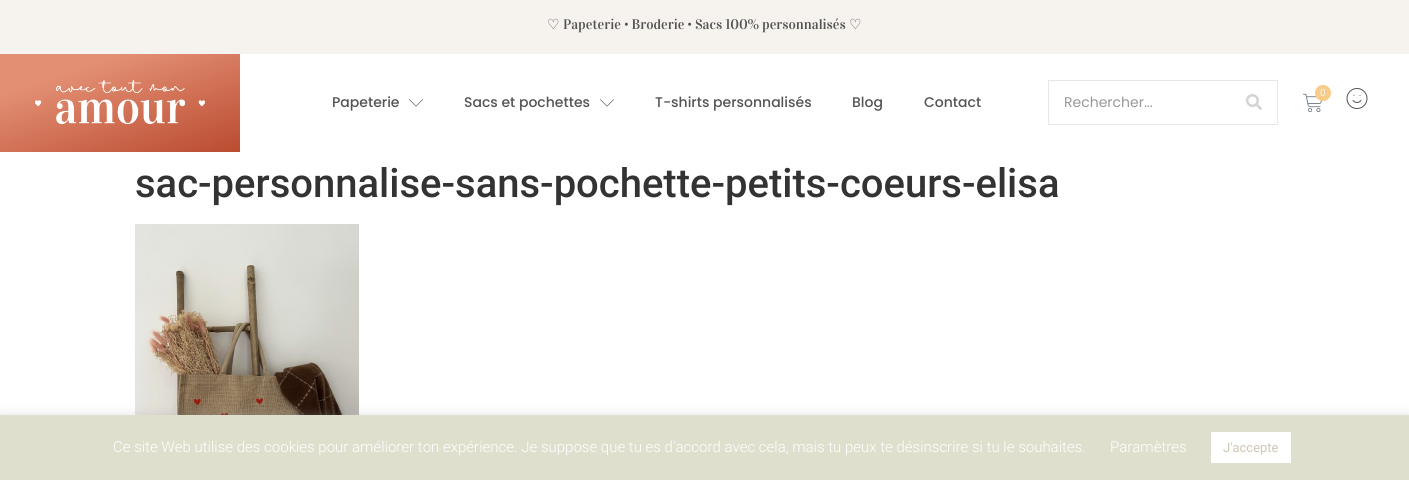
#include <cairo.h>
#include <math.h>
#include <stddef.h>


static void round_rect(cairo_t *cr, double x, double y, double w, double h, double r) {
    cairo_new_sub_path(cr);
    cairo_arc(cr, x + w - r, y + h - r, r, 0, M_PI / 2);
    cairo_arc(cr, x + r, y + h - r, r, M_PI / 2, M_PI);
    cairo_arc(cr, x + r, y + r, r, M_PI, 1.5 * M_PI);
    cairo_arc(cr, x + w - r, y + r, r, 1.5 * M_PI, 2 * M_PI);
    cairo_close_path(cr);
}

static void shadow(cairo_t *cr, double x, double y, double w, double h, double r, double blur, double alpha) {
    cairo_push_group_with_content(cr, CAIRO_CONTENT_ALPHA);
    cairo_set_operator(cr, CAIRO_OPERATOR_SOURCE);
    for (int i = 15; i >= -15 && fmin(w, h) + blur * i / 3 > 0; i -= 2) {
        double e = blur * i / 6;
        cairo_set_source_rgba(cr, 0, 0, 0, alpha * erfc((i - 1) / 8.5) / 2);
        round_rect(cr, x - e, y - e, w + 2 * e, h + 2 * e, fmax(0, fmin(r + e + blur * .6, fmin(w, h) / 2 + e)));
        cairo_fill(cr);
    }
    cairo_pattern_t *soft = cairo_pop_group(cr);
    cairo_mask(cr, soft);
    cairo_pattern_destroy(soft);
}

static void picture(cairo_t *cr, const char *path, double x, double y, double w, double h) {
    cairo_surface_t *image = cairo_image_surface_create_from_png(path);
    cairo_save(cr);
    cairo_set_source_surface(cr, image, x, y);
    cairo_rectangle(cr, x, y, w, h);
    cairo_fill(cr);
    cairo_restore(cr);
    cairo_surface_destroy(image);
}

int main(void) {
    cairo_surface_t *surface = cairo_image_surface_create(CAIRO_FORMAT_RGB24, 1409, 480);
    cairo_t *cr = cairo_create(surface);
    cairo_font_options_t *options = cairo_font_options_create();
    cairo_font_options_set_hint_metrics(options, CAIRO_HINT_METRICS_OFF);
    cairo_font_options_set_hint_style(options, CAIRO_HINT_STYLE_NONE);
    cairo_set_font_options(cr, options);
    cairo_set_miter_limit(cr, 4);
    cairo_pattern_t *gradient;
    cairo_set_source_rgb(cr, 1, 1, 1);
    cairo_paint(cr);
    cairo_set_source_rgb(cr, 0.961, 0.953, 0.937);
    cairo_rectangle(cr, 0, 0, 1409, 54);
    cairo_fill(cr);
    cairo_select_font_face(cr, "DejaVu Sans", CAIRO_FONT_SLANT_NORMAL, CAIRO_FONT_WEIGHT_NORMAL);
    cairo_set_font_size(cr, 14);
    cairo_set_source_rgb(cr, 0.329, 0.329, 0.329);
    cairo_move_to(cr, 547, 29);
    cairo_show_text(cr, "♡");
    cairo_select_font_face(cr, "Vidaloka", CAIRO_FONT_SLANT_NORMAL, CAIRO_FONT_WEIGHT_NORMAL);
    cairo_move_to(cr, 563, 29);
    cairo_show_text(cr, "Papeterie • Broderie • Sacs 100% personnalisés");
    cairo_select_font_face(cr, "DejaVu Sans", CAIRO_FONT_SLANT_NORMAL, CAIRO_FONT_WEIGHT_NORMAL);
    cairo_move_to(cr, 849, 29);
    cairo_show_text(cr, "♡");
    gradient = cairo_pattern_create_linear(146, 183, 94, 23);
    cairo_pattern_add_color_stop_rgba(gradient, 0, 0.729, 0.294, 0.184, 1);
    cairo_pattern_add_color_stop_rgba(gradient, 0.77, 0.89, 0.561, 0.455, 1);
    cairo_set_source(cr, gradient);
    cairo_pattern_destroy(gradient);
    cairo_rectangle(cr, 0, 54, 240, 98);
    cairo_fill(cr);
    picture(cr, "img1.png", 35, 80, 170, 45);
    cairo_select_font_face(cr, "Poppins Medium", CAIRO_FONT_SLANT_NORMAL, CAIRO_FONT_WEIGHT_NORMAL);
    cairo_set_source_rgb(cr, 0.329, 0.329, 0.329);
    cairo_move_to(cr, 332, 107);
    cairo_show_text(cr, "Papeterie");
    picture(cr, "img2.png", 409, 99, 14, 8);
    cairo_move_to(cr, 464, 107);
    cairo_show_text(cr, "Sacs et pochettes");
    picture(cr, "img2.png", 600, 99, 14, 8);
    cairo_move_to(cr, 655, 107);
    cairo_show_text(cr, "T-shirts personnalisés");
    cairo_move_to(cr, 852, 107);
    cairo_show_text(cr, "Blog");
    cairo_move_to(cr, 924, 107);
    cairo_show_text(cr, "Contact");
    cairo_rectangle(cr, 1048.5, 80.5, 229, 44);
    cairo_set_source_rgb(cr, 0.906, 0.906, 0.906);
    cairo_set_line_width(cr, 1);
    cairo_stroke(cr);
    cairo_select_font_face(cr, "Poppins", CAIRO_FONT_SLANT_NORMAL, CAIRO_FONT_WEIGHT_NORMAL);
    cairo_set_source_rgb(cr, 0.596, 0.596, 0.596);
    cairo_move_to(cr, 1064, 107);
    cairo_show_text(cr, "Rechercher...");
    picture(cr, "img3.png", 1246, 94, 16, 16);
    picture(cr, "img4.png", 1303, 93, 19, 20);
    cairo_set_source_rgb(cr, 0.969, 0.796, 0.537);
    cairo_arc(cr, 1323, 93, 8, 0, 2 * M_PI);
    cairo_fill(cr);
    cairo_select_font_face(cr, "Roboto", CAIRO_FONT_SLANT_NORMAL, CAIRO_FONT_WEIGHT_NORMAL);
    cairo_set_font_size(cr, 10);
    cairo_set_source_rgb(cr, 0.961, 0.953, 0.937);
    cairo_move_to(cr, 1320, 96);
    cairo_show_text(cr, "0");
    picture(cr, "img5.png", 1346, 88, 22, 21);
    cairo_select_font_face(cr, "Roboto Medium", CAIRO_FONT_SLANT_NORMAL, CAIRO_FONT_WEIGHT_NORMAL);
    cairo_set_font_size(cr, 40);
    cairo_set_source_rgb(cr, 0.2, 0.2, 0.2);
    cairo_move_to(cr, 135, 197);
    cairo_show_text(cr, "sac-personnalise-sans-pochette-petits-coeurs-elisa");
    picture(cr, "img6.png", 135, 224, 224, 191);
    cairo_set_source_rgb(cr, 0.675, 0.671, 0.671);
    shadow(cr, 0, 414, 1409, 65, 0, 5, 0.3);
    cairo_set_source_rgb(cr, 0.871, 0.878, 0.804);
    cairo_rectangle(cr, 0, 415, 1409, 65);
    cairo_fill(cr);
    cairo_select_font_face(cr, "Roboto Light", CAIRO_FONT_SLANT_NORMAL, CAIRO_FONT_WEIGHT_NORMAL);
    cairo_set_font_size(cr, 15);
    cairo_set_source_rgb(cr, 1, 1, 1);
    cairo_move_to(cr, 113, 452);
    cairo_show_text(cr, "Ce site Web utilise des cookies pour améliorer ton expérience. Je suppose que tu es d'accord avec cela, mais tu peux te désinscrire si tu le souhaites.");
    cairo_move_to(cr, 1110, 452);
    cairo_show_text(cr, "Paramètres");
    cairo_rectangle(cr, 1211, 432, 80, 31);
    cairo_fill(cr);
    cairo_select_font_face(cr, "Roboto", CAIRO_FONT_SLANT_NORMAL, CAIRO_FONT_WEIGHT_NORMAL);
    cairo_set_font_size(cr, 13);
    cairo_set_source_rgb(cr, 0.804, 0.78, 0.71);
    cairo_move_to(cr, 1223, 452);
    cairo_show_text(cr, "J'accepte");
    cairo_surface_write_to_png(surface, "page.png");
    cairo_font_options_destroy(options);
    cairo_destroy(cr);
    cairo_surface_destroy(surface);
    return 0;
}
